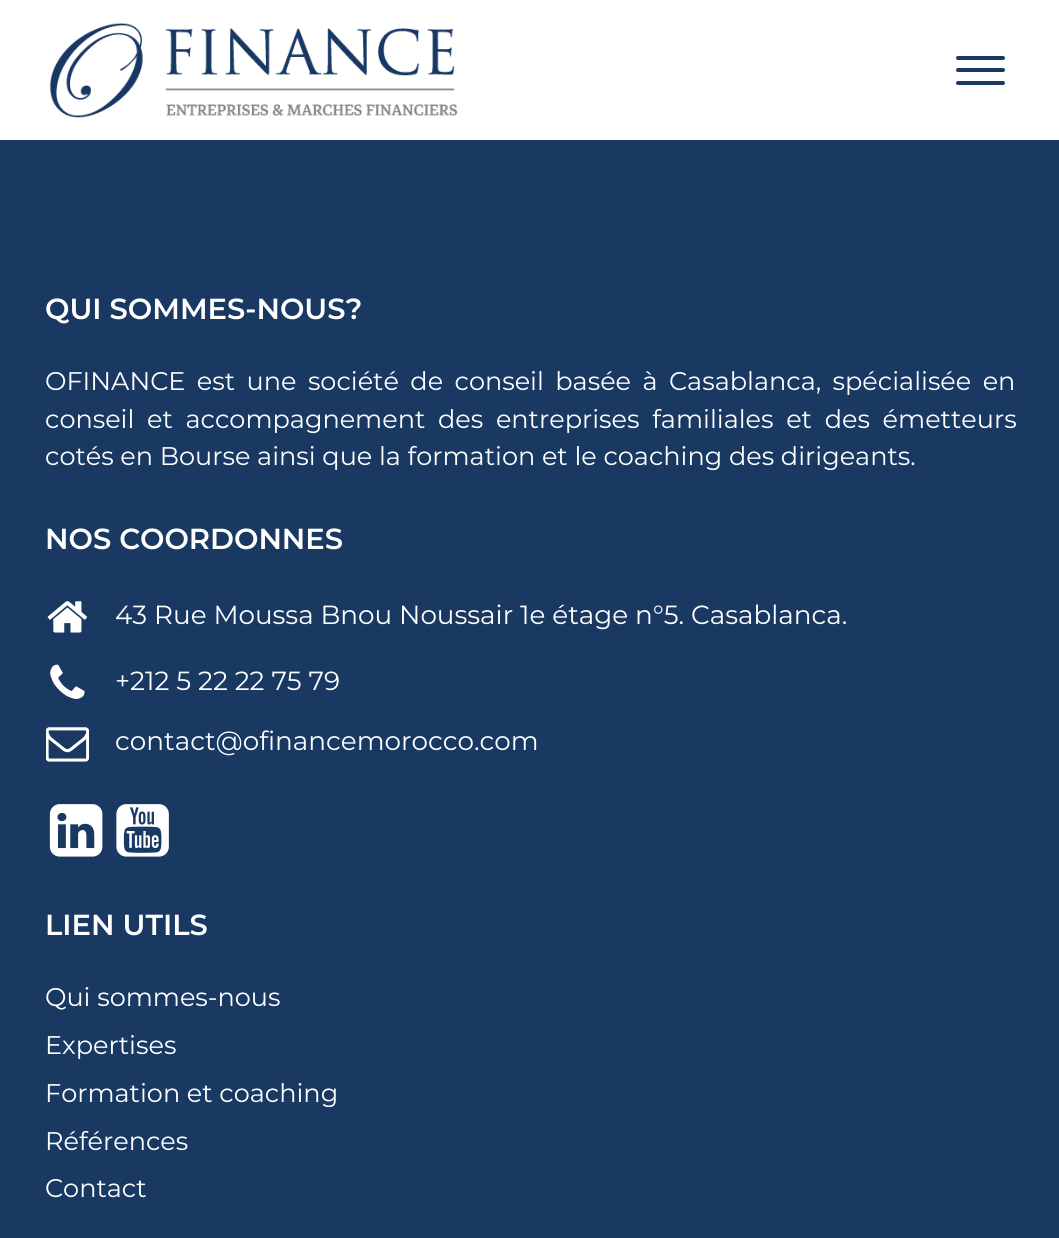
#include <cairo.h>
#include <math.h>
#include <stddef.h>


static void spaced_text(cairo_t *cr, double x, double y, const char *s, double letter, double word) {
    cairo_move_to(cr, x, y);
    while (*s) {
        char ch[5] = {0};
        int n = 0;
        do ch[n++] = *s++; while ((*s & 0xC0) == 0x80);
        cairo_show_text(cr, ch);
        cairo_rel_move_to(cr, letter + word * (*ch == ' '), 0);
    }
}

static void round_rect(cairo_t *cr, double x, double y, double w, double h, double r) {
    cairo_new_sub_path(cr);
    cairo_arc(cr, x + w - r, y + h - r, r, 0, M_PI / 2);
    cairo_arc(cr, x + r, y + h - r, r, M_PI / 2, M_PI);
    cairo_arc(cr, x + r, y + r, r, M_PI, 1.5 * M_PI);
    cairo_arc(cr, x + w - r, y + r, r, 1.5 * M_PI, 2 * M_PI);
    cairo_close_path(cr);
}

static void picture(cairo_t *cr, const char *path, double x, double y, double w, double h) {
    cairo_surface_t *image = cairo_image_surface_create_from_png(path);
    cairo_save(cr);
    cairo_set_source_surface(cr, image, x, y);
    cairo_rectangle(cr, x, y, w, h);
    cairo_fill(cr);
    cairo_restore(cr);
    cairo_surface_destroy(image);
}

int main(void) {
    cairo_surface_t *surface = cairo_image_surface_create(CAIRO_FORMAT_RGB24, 1059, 1238);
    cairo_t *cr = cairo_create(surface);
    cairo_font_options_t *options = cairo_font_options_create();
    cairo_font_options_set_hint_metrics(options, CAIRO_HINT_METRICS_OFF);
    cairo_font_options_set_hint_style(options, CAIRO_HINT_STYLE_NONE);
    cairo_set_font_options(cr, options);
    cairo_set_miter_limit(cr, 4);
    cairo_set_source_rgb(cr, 1, 1, 1);
    cairo_paint(cr);
    picture(cr, "img1.png", 49, 22, 409, 96);
    cairo_set_source_rgb(cr, 0.098, 0.224, 0.388);
    round_rect(cr, 956, 56, 49, 4, 2);
    cairo_fill(cr);
    round_rect(cr, 956, 68, 49, 4, 2);
    cairo_fill(cr);
    round_rect(cr, 956, 81, 49, 4, 2);
    cairo_fill(cr);
    cairo_rectangle(cr, 0, 140, 1059, 1098);
    cairo_fill(cr);
    cairo_select_font_face(cr, "Montserrat SemiBold", CAIRO_FONT_SLANT_NORMAL, CAIRO_FONT_WEIGHT_NORMAL);
    cairo_set_font_size(cr, 29);
    cairo_set_source_rgb(cr, 1, 1, 1);
    cairo_move_to(cr, 45, 319);
    cairo_show_text(cr, "QUI SOMMES-NOUS?");
    cairo_select_font_face(cr, "Montserrat", CAIRO_FONT_SLANT_NORMAL, CAIRO_FONT_WEIGHT_NORMAL);
    cairo_set_font_size(cr, 25.55);
    spaced_text(cr, 45, 390, "OFINANCE est une société de conseil basée à Casablanca, spécialisée en", 0, 4.75);
    spaced_text(cr, 45, 428, "conseil et accompagnement des entreprises familiales et des émetteurs", 0, 6);
    cairo_move_to(cr, 45, 465);
    cairo_show_text(cr, "cotés en Bourse ainsi que la formation et le coaching des dirigeants.");
    cairo_select_font_face(cr, "Montserrat SemiBold", CAIRO_FONT_SLANT_NORMAL, CAIRO_FONT_WEIGHT_NORMAL);
    cairo_set_font_size(cr, 29);
    cairo_move_to(cr, 45, 549);
    cairo_show_text(cr, "NOS COORDONNES");
    picture(cr, "img2.png", 47, 601, 40, 32);
    cairo_select_font_face(cr, "Montserrat", CAIRO_FONT_SLANT_NORMAL, CAIRO_FONT_WEIGHT_NORMAL);
    cairo_set_font_size(cr, 26.25);
    cairo_move_to(cr, 115, 624);
    cairo_show_text(cr, "43 Rue Moussa Bnou Noussair 1e étage n°5. Casablanca.");
    picture(cr, "img3.png", 50, 664, 35, 35);
    cairo_move_to(cr, 115, 690);
    cairo_show_text(cr, "+212 5 22 22 75 79");
    picture(cr, "img4.png", 46, 727, 43, 35);
    cairo_move_to(cr, 115, 750);
    cairo_show_text(cr, "contact@ofinancemorocco.com");
    picture(cr, "img5.png", 49, 804, 54, 53);
    picture(cr, "img6.png", 116, 804, 53, 53);
    cairo_select_font_face(cr, "Montserrat SemiBold", CAIRO_FONT_SLANT_NORMAL, CAIRO_FONT_WEIGHT_NORMAL);
    cairo_set_font_size(cr, 29);
    cairo_move_to(cr, 45, 935);
    cairo_show_text(cr, "LIEN UTILS");
    cairo_select_font_face(cr, "Montserrat", CAIRO_FONT_SLANT_NORMAL, CAIRO_FONT_WEIGHT_NORMAL);
    cairo_set_font_size(cr, 25.55);
    cairo_move_to(cr, 45, 1006);
    cairo_show_text(cr, "Qui sommes-nous");
    cairo_move_to(cr, 45, 1054);
    cairo_show_text(cr, "Expertises");
    cairo_move_to(cr, 45, 1102);
    cairo_show_text(cr, "Formation et coaching");
    cairo_move_to(cr, 45, 1150);
    cairo_show_text(cr, "Références");
    cairo_move_to(cr, 45, 1197);
    cairo_show_text(cr, "Contact");
    cairo_surface_write_to_png(surface, "page.png");
    cairo_font_options_destroy(options);
    cairo_destroy(cr);
    cairo_surface_destroy(surface);
    return 0;
}
